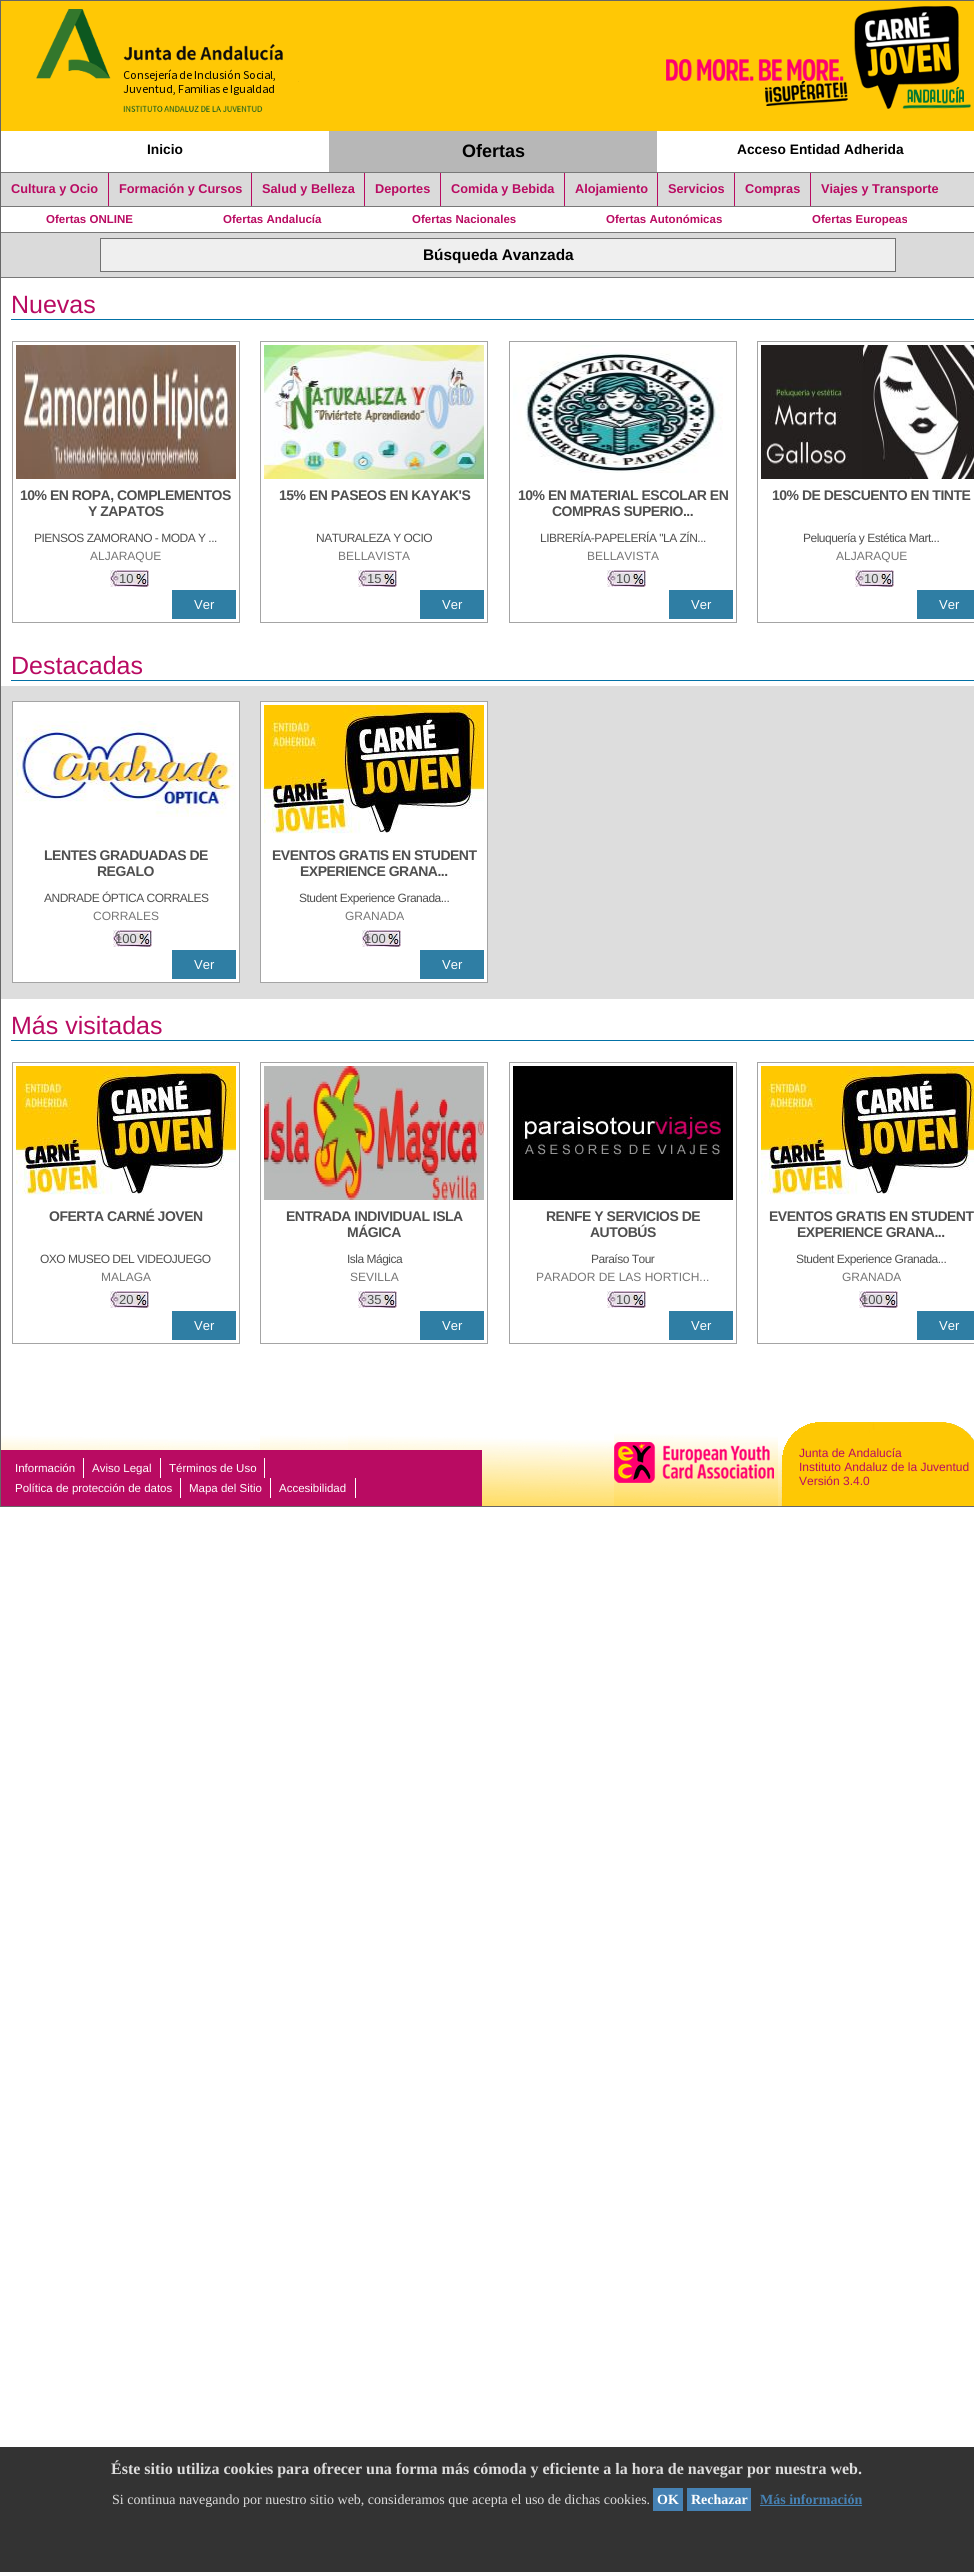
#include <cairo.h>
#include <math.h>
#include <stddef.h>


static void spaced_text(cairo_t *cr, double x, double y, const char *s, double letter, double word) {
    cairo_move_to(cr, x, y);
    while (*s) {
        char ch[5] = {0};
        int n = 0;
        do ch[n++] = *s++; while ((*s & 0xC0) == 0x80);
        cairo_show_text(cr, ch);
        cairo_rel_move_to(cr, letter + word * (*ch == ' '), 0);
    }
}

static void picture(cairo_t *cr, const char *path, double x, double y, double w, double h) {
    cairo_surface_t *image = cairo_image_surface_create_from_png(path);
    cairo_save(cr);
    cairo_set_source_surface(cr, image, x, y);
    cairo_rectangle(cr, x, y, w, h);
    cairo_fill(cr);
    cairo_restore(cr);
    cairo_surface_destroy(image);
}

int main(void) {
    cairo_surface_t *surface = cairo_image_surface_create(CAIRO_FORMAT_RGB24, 974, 2572);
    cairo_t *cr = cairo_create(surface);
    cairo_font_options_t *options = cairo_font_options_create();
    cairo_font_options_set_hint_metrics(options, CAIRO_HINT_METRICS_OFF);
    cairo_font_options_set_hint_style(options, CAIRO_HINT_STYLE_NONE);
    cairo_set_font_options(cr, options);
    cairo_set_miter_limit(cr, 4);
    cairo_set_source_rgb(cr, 1, 1, 1);
    cairo_paint(cr);
    cairo_rectangle(cr, 0.5, 0.5, 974, 1506);
    cairo_set_source_rgb(cr, 0.4, 0.4, 0.4);
    cairo_set_line_width(cr, 1);
    cairo_stroke(cr);
    cairo_set_source_rgb(cr, 1, 0.784, 0.02);
    cairo_rectangle(cr, 1, 1, 973, 130);
    cairo_fill(cr);
    picture(cr, "img1.png", 36, 6, 935, 106);
    cairo_select_font_face(cr, "Liberation Sans", CAIRO_FONT_SLANT_NORMAL, CAIRO_FONT_WEIGHT_BOLD);
    cairo_set_font_size(cr, 13.75);
    cairo_set_source_rgb(cr, 0, 0, 0);
    cairo_move_to(cr, 147, 154);
    cairo_show_text(cr, "Inicio");
    cairo_set_source_rgb(cr, 0.718, 0.718, 0.718);
    cairo_rectangle(cr, 329, 131, 328, 41);
    cairo_fill(cr);
    cairo_set_font_size(cr, 18);
    cairo_set_source_rgb(cr, 0, 0, 0);
    cairo_move_to(cr, 462, 157);
    cairo_show_text(cr, "Ofertas");
    cairo_set_font_size(cr, 13.75);
    cairo_move_to(cr, 737, 154);
    cairo_show_text(cr, "Acceso Entidad Adherida");
    cairo_set_source_rgb(cr, 0.855, 0.855, 0.855);
    cairo_rectangle(cr, 1, 173, 973, 33);
    cairo_fill(cr);
    cairo_set_source_rgb(cr, 0.471, 0.471, 0.471);
    cairo_rectangle(cr, 1, 172, 973, 1);
    cairo_fill(cr);
    cairo_rectangle(cr, 1, 206, 973, 1);
    cairo_fill(cr);
    cairo_set_source_rgb(cr, 0.725, 0.043, 0.384);
    cairo_rectangle(cr, 108, 173, 1, 33);
    cairo_fill(cr);
    cairo_set_font_size(cr, 12.75);
    cairo_move_to(cr, 11, 193);
    cairo_show_text(cr, "Cultura y Ocio");
    cairo_rectangle(cr, 251, 173, 1, 33);
    cairo_fill(cr);
    cairo_move_to(cr, 119, 193);
    cairo_show_text(cr, "Formación y Cursos");
    cairo_rectangle(cr, 364, 173, 1, 33);
    cairo_fill(cr);
    cairo_move_to(cr, 262, 193);
    cairo_show_text(cr, "Salud y Belleza");
    cairo_rectangle(cr, 440, 173, 1, 33);
    cairo_fill(cr);
    cairo_move_to(cr, 375, 193);
    cairo_show_text(cr, "Deportes");
    cairo_rectangle(cr, 564, 173, 1, 33);
    cairo_fill(cr);
    cairo_move_to(cr, 451, 193);
    cairo_show_text(cr, "Comida y Bebida");
    cairo_rectangle(cr, 657, 173, 1, 33);
    cairo_fill(cr);
    cairo_move_to(cr, 575, 193);
    cairo_show_text(cr, "Alojamiento");
    cairo_rectangle(cr, 734, 173, 1, 33);
    cairo_fill(cr);
    cairo_move_to(cr, 668, 193);
    cairo_show_text(cr, "Servicios");
    cairo_rectangle(cr, 810, 173, 1, 33);
    cairo_fill(cr);
    cairo_move_to(cr, 745, 193);
    cairo_show_text(cr, "Compras");
    cairo_move_to(cr, 821, 193);
    cairo_show_text(cr, "Viajes y Transporte");
    cairo_set_font_size(cr, 11.5);
    cairo_move_to(cr, 46, 223);
    cairo_show_text(cr, "Ofertas ONLINE");
    cairo_move_to(cr, 223, 223);
    cairo_show_text(cr, "Ofertas Andalucía");
    cairo_move_to(cr, 412, 223);
    cairo_show_text(cr, "Ofertas Nacionales");
    cairo_move_to(cr, 606, 223);
    cairo_show_text(cr, "Ofertas Autonómicas");
    cairo_move_to(cr, 812, 223);
    cairo_show_text(cr, "Ofertas Europeas");
    cairo_set_source_rgb(cr, 0.855, 0.855, 0.855);
    cairo_rectangle(cr, 1, 233, 973, 44);
    cairo_fill(cr);
    cairo_set_source_rgb(cr, 0.471, 0.471, 0.471);
    cairo_rectangle(cr, 1, 232, 973, 1);
    cairo_fill(cr);
    cairo_rectangle(cr, 1, 277, 973, 1);
    cairo_fill(cr);
    cairo_set_source_rgb(cr, 0.937, 0.937, 0.937);
    cairo_rectangle(cr, 100.5, 238.5, 795, 33);
    cairo_fill_preserve(cr);
    cairo_set_source_rgb(cr, 0.447, 0.447, 0.447);
    cairo_stroke(cr);
    cairo_set_font_size(cr, 15.4);
    cairo_set_source_rgb(cr, 0, 0, 0);
    cairo_move_to(cr, 423, 260);
    cairo_show_text(cr, "Búsqueda Avanzada");
    cairo_set_source_rgb(cr, 0.012, 0.443, 0.651);
    cairo_rectangle(cr, 11, 319, 963, 1);
    cairo_fill(cr);
    cairo_select_font_face(cr, "Liberation Sans", CAIRO_FONT_SLANT_NORMAL, CAIRO_FONT_WEIGHT_NORMAL);
    cairo_set_font_size(cr, 25);
    cairo_set_source_rgb(cr, 0.725, 0.043, 0.384);
    cairo_move_to(cr, 11, 313);
    cairo_show_text(cr, "Nuevas");
    cairo_rectangle(cr, 12.5, 341.5, 227, 281);
    cairo_set_source_rgb(cr, 0.643, 0.643, 0.643);
    cairo_stroke(cr);
    picture(cr, "img2.png", 16, 345, 220, 134);
    cairo_select_font_face(cr, "Liberation Sans", CAIRO_FONT_SLANT_NORMAL, CAIRO_FONT_WEIGHT_BOLD);
    cairo_set_font_size(cr, 14);
    cairo_set_source_rgb(cr, 0.31, 0.31, 0.31);
    spaced_text(cr, 20, 500, "10% EN ROPA, COMPLEMENTOS", -0.5, 0);
    spaced_text(cr, 88, 516, "Y ZAPATOS", -0.5, 0);
    cairo_select_font_face(cr, "Liberation Sans", CAIRO_FONT_SLANT_NORMAL, CAIRO_FONT_WEIGHT_NORMAL);
    cairo_set_font_size(cr, 12);
    spaced_text(cr, 34, 542, "PIENSOS ZAMORANO - MODA Y ...", -0.5, 0);
    cairo_set_source_rgb(cr, 0.459, 0.459, 0.459);
    cairo_move_to(cr, 90, 560);
    cairo_show_text(cr, "ALJARAQUE");
    picture(cr, "img3.png", 110, 570, 39, 17);
    cairo_set_font_size(cr, 13);
    cairo_set_source_rgb(cr, 0.31, 0.31, 0.31);
    cairo_move_to(cr, 119, 583);
    cairo_show_text(cr, "10");
    cairo_set_source_rgb(cr, 0.184, 0.494, 0.643);
    cairo_rectangle(cr, 172, 590, 64, 29);
    cairo_fill(cr);
    cairo_set_source_rgb(cr, 1, 1, 1);
    cairo_move_to(cr, 194, 609);
    cairo_show_text(cr, "Ver");
    cairo_rectangle(cr, 260.5, 341.5, 227, 281);
    cairo_set_source_rgb(cr, 0.643, 0.643, 0.643);
    cairo_stroke(cr);
    picture(cr, "img4.png", 264, 345, 220, 134);
    cairo_select_font_face(cr, "Liberation Sans", CAIRO_FONT_SLANT_NORMAL, CAIRO_FONT_WEIGHT_BOLD);
    cairo_set_font_size(cr, 14);
    cairo_set_source_rgb(cr, 0.31, 0.31, 0.31);
    spaced_text(cr, 279, 500, "15% EN PASEOS EN KAYAK'S", -0.5, 0);
    cairo_select_font_face(cr, "Liberation Sans", CAIRO_FONT_SLANT_NORMAL, CAIRO_FONT_WEIGHT_NORMAL);
    cairo_set_font_size(cr, 12);
    spaced_text(cr, 316, 542, "NATURALEZA Y OCIO", -0.5, 0);
    cairo_set_source_rgb(cr, 0.459, 0.459, 0.459);
    cairo_move_to(cr, 338, 560);
    cairo_show_text(cr, "BELLAVISTA");
    picture(cr, "img3.png", 358, 570, 39, 17);
    cairo_set_font_size(cr, 13);
    cairo_set_source_rgb(cr, 0.31, 0.31, 0.31);
    cairo_move_to(cr, 367, 583);
    cairo_show_text(cr, "15");
    cairo_set_source_rgb(cr, 0.184, 0.494, 0.643);
    cairo_rectangle(cr, 420, 590, 64, 29);
    cairo_fill(cr);
    cairo_set_source_rgb(cr, 1, 1, 1);
    cairo_move_to(cr, 442, 609);
    cairo_show_text(cr, "Ver");
    cairo_rectangle(cr, 509.5, 341.5, 227, 281);
    cairo_set_source_rgb(cr, 0.643, 0.643, 0.643);
    cairo_stroke(cr);
    picture(cr, "img5.png", 513, 345, 210, 128);
    cairo_select_font_face(cr, "Liberation Sans", CAIRO_FONT_SLANT_NORMAL, CAIRO_FONT_WEIGHT_BOLD);
    cairo_set_font_size(cr, 14);
    cairo_set_source_rgb(cr, 0.31, 0.31, 0.31);
    spaced_text(cr, 518, 500, "10% EN MATERIAL ESCOLAR EN", -0.5, 0);
    spaced_text(cr, 552, 516, "COMPRAS SUPERIO...", -0.5, 0);
    cairo_select_font_face(cr, "Liberation Sans", CAIRO_FONT_SLANT_NORMAL, CAIRO_FONT_WEIGHT_NORMAL);
    cairo_set_font_size(cr, 12);
    spaced_text(cr, 540, 542, "LIBRERÍA-PAPELERÍA \"LA ZÍN...", -0.5, 0);
    cairo_set_source_rgb(cr, 0.459, 0.459, 0.459);
    cairo_move_to(cr, 587, 560);
    cairo_show_text(cr, "BELLAVISTA");
    picture(cr, "img3.png", 607, 570, 39, 17);
    cairo_set_font_size(cr, 13);
    cairo_set_source_rgb(cr, 0.31, 0.31, 0.31);
    cairo_move_to(cr, 616, 583);
    cairo_show_text(cr, "10");
    cairo_set_source_rgb(cr, 0.184, 0.494, 0.643);
    cairo_rectangle(cr, 669, 590, 64, 29);
    cairo_fill(cr);
    cairo_set_source_rgb(cr, 1, 1, 1);
    cairo_move_to(cr, 691, 609);
    cairo_show_text(cr, "Ver");
    cairo_rectangle(cr, 757.5, 341.5, 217, 281);
    cairo_set_source_rgb(cr, 0.643, 0.643, 0.643);
    cairo_stroke(cr);
    picture(cr, "img6.png", 761, 345, 213, 134);
    cairo_select_font_face(cr, "Liberation Sans", CAIRO_FONT_SLANT_NORMAL, CAIRO_FONT_WEIGHT_BOLD);
    cairo_set_font_size(cr, 14);
    cairo_set_source_rgb(cr, 0.31, 0.31, 0.31);
    spaced_text(cr, 772, 500, "10% DE DESCUENTO EN TINTE", -0.5, 0);
    cairo_select_font_face(cr, "Liberation Sans", CAIRO_FONT_SLANT_NORMAL, CAIRO_FONT_WEIGHT_NORMAL);
    cairo_set_font_size(cr, 12);
    spaced_text(cr, 803, 542, "Peluquería y Estética Mart...", -0.5, 0);
    cairo_set_source_rgb(cr, 0.459, 0.459, 0.459);
    cairo_move_to(cr, 836, 560);
    cairo_show_text(cr, "ALJARAQUE");
    picture(cr, "img3.png", 855, 570, 39, 17);
    cairo_set_font_size(cr, 13);
    cairo_set_source_rgb(cr, 0.31, 0.31, 0.31);
    cairo_move_to(cr, 864, 583);
    cairo_show_text(cr, "10");
    cairo_set_source_rgb(cr, 0.184, 0.494, 0.643);
    cairo_rectangle(cr, 917, 590, 57, 29);
    cairo_fill(cr);
    cairo_set_source_rgb(cr, 1, 1, 1);
    cairo_move_to(cr, 939, 609);
    cairo_show_text(cr, "Ver");
    cairo_set_source_rgb(cr, 0.012, 0.443, 0.651);
    cairo_rectangle(cr, 11, 680, 963, 1);
    cairo_fill(cr);
    cairo_set_font_size(cr, 25);
    cairo_set_source_rgb(cr, 0.725, 0.043, 0.384);
    cairo_move_to(cr, 11, 674);
    cairo_show_text(cr, "Destacadas");
    cairo_set_source_rgb(cr, 0.867, 0.867, 0.867);
    cairo_rectangle(cr, 1, 686, 973, 313);
    cairo_fill(cr);
    cairo_set_source_rgb(cr, 1, 1, 1);
    cairo_rectangle(cr, 12.5, 701.5, 227, 281);
    cairo_fill_preserve(cr);
    cairo_set_source_rgb(cr, 0.643, 0.643, 0.643);
    cairo_stroke(cr);
    picture(cr, "img7.png", 16, 721, 220, 96);
    cairo_select_font_face(cr, "Liberation Sans", CAIRO_FONT_SLANT_NORMAL, CAIRO_FONT_WEIGHT_BOLD);
    cairo_set_font_size(cr, 14);
    cairo_set_source_rgb(cr, 0.31, 0.31, 0.31);
    spaced_text(cr, 44, 860, "LENTES GRADUADAS DE", -0.5, 0);
    spaced_text(cr, 97, 876, "REGALO", -0.5, 0);
    cairo_select_font_face(cr, "Liberation Sans", CAIRO_FONT_SLANT_NORMAL, CAIRO_FONT_WEIGHT_NORMAL);
    cairo_set_font_size(cr, 12);
    spaced_text(cr, 44, 902, "ANDRADE ÓPTICA CORRALES", -0.5, 0);
    cairo_set_source_rgb(cr, 0.459, 0.459, 0.459);
    cairo_move_to(cr, 93, 920);
    cairo_show_text(cr, "CORRALES");
    picture(cr, "img3.png", 113, 930, 39, 17);
    cairo_set_font_size(cr, 13);
    cairo_set_source_rgb(cr, 0.31, 0.31, 0.31);
    cairo_move_to(cr, 115, 943);
    cairo_show_text(cr, "100");
    cairo_set_source_rgb(cr, 0.184, 0.494, 0.643);
    cairo_rectangle(cr, 172, 950, 64, 29);
    cairo_fill(cr);
    cairo_set_source_rgb(cr, 1, 1, 1);
    cairo_move_to(cr, 194, 969);
    cairo_show_text(cr, "Ver");
    cairo_rectangle(cr, 260.5, 701.5, 227, 281);
    cairo_fill_preserve(cr);
    cairo_set_source_rgb(cr, 0.643, 0.643, 0.643);
    cairo_stroke(cr);
    picture(cr, "img8.png", 264, 705, 220, 129);
    cairo_select_font_face(cr, "Liberation Sans", CAIRO_FONT_SLANT_NORMAL, CAIRO_FONT_WEIGHT_BOLD);
    cairo_set_font_size(cr, 14);
    cairo_set_source_rgb(cr, 0.31, 0.31, 0.31);
    spaced_text(cr, 272, 860, "EVENTOS GRATIS EN STUDENT", -0.5, 0);
    spaced_text(cr, 300, 876, "EXPERIENCE GRANA...", -0.5, 0);
    cairo_select_font_face(cr, "Liberation Sans", CAIRO_FONT_SLANT_NORMAL, CAIRO_FONT_WEIGHT_NORMAL);
    cairo_set_font_size(cr, 12);
    spaced_text(cr, 299, 902, "Student Experience Granada...", -0.5, 0);
    cairo_set_source_rgb(cr, 0.459, 0.459, 0.459);
    cairo_move_to(cr, 345, 920);
    cairo_show_text(cr, "GRANADA");
    picture(cr, "img3.png", 362, 930, 39, 17);
    cairo_set_font_size(cr, 13);
    cairo_set_source_rgb(cr, 0.31, 0.31, 0.31);
    cairo_move_to(cr, 364, 943);
    cairo_show_text(cr, "100");
    cairo_set_source_rgb(cr, 0.184, 0.494, 0.643);
    cairo_rectangle(cr, 420, 950, 64, 29);
    cairo_fill(cr);
    cairo_set_source_rgb(cr, 1, 1, 1);
    cairo_move_to(cr, 442, 969);
    cairo_show_text(cr, "Ver");
    cairo_set_source_rgb(cr, 0.012, 0.443, 0.651);
    cairo_rectangle(cr, 11, 1040, 963, 1);
    cairo_fill(cr);
    cairo_set_font_size(cr, 25);
    cairo_set_source_rgb(cr, 0.725, 0.043, 0.384);
    cairo_move_to(cr, 11, 1034);
    cairo_show_text(cr, "Más visitadas");
    cairo_rectangle(cr, 12.5, 1062.5, 227, 281);
    cairo_set_source_rgb(cr, 0.643, 0.643, 0.643);
    cairo_stroke(cr);
    picture(cr, "img8.png", 16, 1066, 220, 129);
    cairo_select_font_face(cr, "Liberation Sans", CAIRO_FONT_SLANT_NORMAL, CAIRO_FONT_WEIGHT_BOLD);
    cairo_set_font_size(cr, 14);
    cairo_set_source_rgb(cr, 0.31, 0.31, 0.31);
    spaced_text(cr, 49, 1221, "OFERTA CARNÉ JOVEN", -0.5, 0);
    cairo_select_font_face(cr, "Liberation Sans", CAIRO_FONT_SLANT_NORMAL, CAIRO_FONT_WEIGHT_NORMAL);
    cairo_set_font_size(cr, 12);
    spaced_text(cr, 40, 1263, "OXO MUSEO DEL VIDEOJUEGO", -0.5, 0);
    cairo_set_source_rgb(cr, 0.459, 0.459, 0.459);
    cairo_move_to(cr, 101, 1281);
    cairo_show_text(cr, "MALAGA");
    picture(cr, "img3.png", 110, 1291, 39, 17);
    cairo_set_font_size(cr, 13);
    cairo_set_source_rgb(cr, 0.31, 0.31, 0.31);
    cairo_move_to(cr, 119, 1304);
    cairo_show_text(cr, "20");
    cairo_set_source_rgb(cr, 0.184, 0.494, 0.643);
    cairo_rectangle(cr, 172, 1311, 64, 29);
    cairo_fill(cr);
    cairo_set_source_rgb(cr, 1, 1, 1);
    cairo_move_to(cr, 194, 1330);
    cairo_show_text(cr, "Ver");
    cairo_rectangle(cr, 260.5, 1062.5, 227, 281);
    cairo_set_source_rgb(cr, 0.643, 0.643, 0.643);
    cairo_stroke(cr);
    picture(cr, "img9.png", 264, 1066, 220, 134);
    cairo_select_font_face(cr, "Liberation Sans", CAIRO_FONT_SLANT_NORMAL, CAIRO_FONT_WEIGHT_BOLD);
    cairo_set_font_size(cr, 14);
    cairo_set_source_rgb(cr, 0.31, 0.31, 0.31);
    spaced_text(cr, 286, 1221, "ENTRADA INDIVIDUAL ISLA", -0.5, 0);
    spaced_text(cr, 347, 1237, "MÁGICA", -0.5, 0);
    cairo_select_font_face(cr, "Liberation Sans", CAIRO_FONT_SLANT_NORMAL, CAIRO_FONT_WEIGHT_NORMAL);
    cairo_set_font_size(cr, 12);
    spaced_text(cr, 347, 1263, "Isla Mágica", -0.5, 0);
    cairo_set_source_rgb(cr, 0.459, 0.459, 0.459);
    cairo_move_to(cr, 350, 1281);
    cairo_show_text(cr, "SEVILLA");
    picture(cr, "img3.png", 358, 1291, 39, 17);
    cairo_set_font_size(cr, 13);
    cairo_set_source_rgb(cr, 0.31, 0.31, 0.31);
    cairo_move_to(cr, 367, 1304);
    cairo_show_text(cr, "35");
    cairo_set_source_rgb(cr, 0.184, 0.494, 0.643);
    cairo_rectangle(cr, 420, 1311, 64, 29);
    cairo_fill(cr);
    cairo_set_source_rgb(cr, 1, 1, 1);
    cairo_move_to(cr, 442, 1330);
    cairo_show_text(cr, "Ver");
    cairo_rectangle(cr, 509.5, 1062.5, 227, 281);
    cairo_set_source_rgb(cr, 0.643, 0.643, 0.643);
    cairo_stroke(cr);
    picture(cr, "img10.png", 513, 1066, 220, 134);
    cairo_select_font_face(cr, "Liberation Sans", CAIRO_FONT_SLANT_NORMAL, CAIRO_FONT_WEIGHT_BOLD);
    cairo_set_font_size(cr, 14);
    cairo_set_source_rgb(cr, 0.31, 0.31, 0.31);
    spaced_text(cr, 546, 1221, "RENFE Y SERVICIOS DE", -0.5, 0);
    spaced_text(cr, 590, 1237, "AUTOBÚS", -0.5, 0);
    cairo_select_font_face(cr, "Liberation Sans", CAIRO_FONT_SLANT_NORMAL, CAIRO_FONT_WEIGHT_NORMAL);
    cairo_set_font_size(cr, 12);
    spaced_text(cr, 591, 1263, "Paraíso Tour", -0.5, 0);
    cairo_set_source_rgb(cr, 0.459, 0.459, 0.459);
    cairo_move_to(cr, 536, 1281);
    cairo_show_text(cr, "PARADOR DE LAS HORTICH...");
    picture(cr, "img3.png", 607, 1291, 39, 17);
    cairo_set_font_size(cr, 13);
    cairo_set_source_rgb(cr, 0.31, 0.31, 0.31);
    cairo_move_to(cr, 616, 1304);
    cairo_show_text(cr, "10");
    cairo_set_source_rgb(cr, 0.184, 0.494, 0.643);
    cairo_rectangle(cr, 669, 1311, 64, 29);
    cairo_fill(cr);
    cairo_set_source_rgb(cr, 1, 1, 1);
    cairo_move_to(cr, 691, 1330);
    cairo_show_text(cr, "Ver");
    cairo_rectangle(cr, 757.5, 1062.5, 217, 281);
    cairo_set_source_rgb(cr, 0.643, 0.643, 0.643);
    cairo_stroke(cr);
    picture(cr, "img11.png", 761, 1066, 213, 129);
    cairo_select_font_face(cr, "Liberation Sans", CAIRO_FONT_SLANT_NORMAL, CAIRO_FONT_WEIGHT_BOLD);
    cairo_set_font_size(cr, 14);
    cairo_set_source_rgb(cr, 0.31, 0.31, 0.31);
    spaced_text(cr, 769, 1221, "EVENTOS GRATIS EN STUDENT", -0.5, 0);
    spaced_text(cr, 797, 1237, "EXPERIENCE GRANA...", -0.5, 0);
    cairo_select_font_face(cr, "Liberation Sans", CAIRO_FONT_SLANT_NORMAL, CAIRO_FONT_WEIGHT_NORMAL);
    cairo_set_font_size(cr, 12);
    spaced_text(cr, 796, 1263, "Student Experience Granada...", -0.5, 0);
    cairo_set_source_rgb(cr, 0.459, 0.459, 0.459);
    cairo_move_to(cr, 842, 1281);
    cairo_show_text(cr, "GRANADA");
    picture(cr, "img3.png", 859, 1291, 39, 17);
    cairo_set_font_size(cr, 13);
    cairo_set_source_rgb(cr, 0.31, 0.31, 0.31);
    cairo_move_to(cr, 861, 1304);
    cairo_show_text(cr, "100");
    cairo_set_source_rgb(cr, 0.184, 0.494, 0.643);
    cairo_rectangle(cr, 917, 1311, 57, 29);
    cairo_fill(cr);
    cairo_set_source_rgb(cr, 1, 1, 1);
    cairo_move_to(cr, 939, 1330);
    cairo_show_text(cr, "Ver");
    picture(cr, "img12.png", 1, 1422, 973, 84);
    cairo_set_source_rgb(cr, 0.725, 0.043, 0.384);
    cairo_rectangle(cr, 1, 1450, 481, 56);
    cairo_fill(cr);
    cairo_set_source_rgb(cr, 1, 1, 1);
    cairo_rectangle(cr, 83, 1458, 1, 20);
    cairo_fill(cr);
    cairo_set_font_size(cr, 11.5);
    cairo_move_to(cr, 15, 1472);
    cairo_show_text(cr, "Información");
    cairo_rectangle(cr, 160, 1458, 1, 20);
    cairo_fill(cr);
    cairo_move_to(cr, 92, 1472);
    cairo_show_text(cr, "Aviso Legal");
    cairo_rectangle(cr, 264, 1458, 1, 20);
    cairo_fill(cr);
    cairo_move_to(cr, 169, 1472);
    cairo_show_text(cr, "Términos de Uso");
    cairo_rectangle(cr, 180, 1478, 1, 20);
    cairo_fill(cr);
    cairo_move_to(cr, 15, 1492);
    cairo_show_text(cr, "Política de protección de datos");
    cairo_rectangle(cr, 270, 1478, 1, 20);
    cairo_fill(cr);
    cairo_move_to(cr, 189, 1492);
    cairo_show_text(cr, "Mapa del Sitio");
    cairo_rectangle(cr, 355, 1478, 1, 20);
    cairo_fill(cr);
    cairo_move_to(cr, 279, 1492);
    cairo_show_text(cr, "Accesibilidad");
    cairo_set_font_size(cr, 12);
    cairo_set_source_rgb(cr, 0.725, 0.043, 0.384);
    cairo_move_to(cr, 799, 1457);
    cairo_show_text(cr, "Junta de Andalucía");
    cairo_move_to(cr, 799, 1471);
    cairo_show_text(cr, "Instituto Andaluz de la Juventud");
    cairo_move_to(cr, 799, 1485);
    cairo_show_text(cr, "Versión 3.4.0");
    cairo_set_source_rgb(cr, 0.2, 0.2, 0.2);
    cairo_rectangle(cr, 0, 2447, 974, 125);
    cairo_fill(cr);
    cairo_select_font_face(cr, "Liberation Serif", CAIRO_FONT_SLANT_NORMAL, CAIRO_FONT_WEIGHT_BOLD);
    cairo_set_font_size(cr, 16);
    cairo_set_source_rgb(cr, 0.867, 0.867, 0.867);
    cairo_move_to(cr, 111, 2474);
    cairo_show_text(cr, "Éste sitio utiliza cookies para ofrecer una forma más cómoda y eficiente a la hora de navegar por nuestra web.");
    cairo_select_font_face(cr, "Liberation Serif", CAIRO_FONT_SLANT_NORMAL, CAIRO_FONT_WEIGHT_NORMAL);
    cairo_set_font_size(cr, 14);
    cairo_move_to(cr, 112, 2504);
    cairo_show_text(cr, "Si continua navegando por nuestro sitio web, consideramos que acepta el uso de dichas cookies.");
    cairo_set_source_rgb(cr, 0.275, 0.51, 0.706);
    cairo_rectangle(cr, 653, 2488, 30, 23);
    cairo_fill(cr);
    cairo_select_font_face(cr, "Liberation Serif", CAIRO_FONT_SLANT_NORMAL, CAIRO_FONT_WEIGHT_BOLD);
    cairo_set_source_rgb(cr, 1, 1, 1);
    cairo_move_to(cr, 657, 2504);
    cairo_show_text(cr, "OK");
    cairo_set_source_rgb(cr, 0.275, 0.51, 0.706);
    cairo_rectangle(cr, 687, 2488, 64, 23);
    cairo_fill(cr);
    cairo_set_source_rgb(cr, 1, 1, 1);
    cairo_move_to(cr, 691, 2504);
    cairo_show_text(cr, "Rechazar");
    cairo_set_source_rgb(cr, 0.275, 0.51, 0.706);
    cairo_move_to(cr, 760, 2504);
    cairo_show_text(cr, "Más información");
    cairo_rectangle(cr, 760, 2505, 102, 1);
    cairo_fill(cr);
    cairo_surface_write_to_png(surface, "page.png");
    cairo_font_options_destroy(options);
    cairo_destroy(cr);
    cairo_surface_destroy(surface);
    return 0;
}
